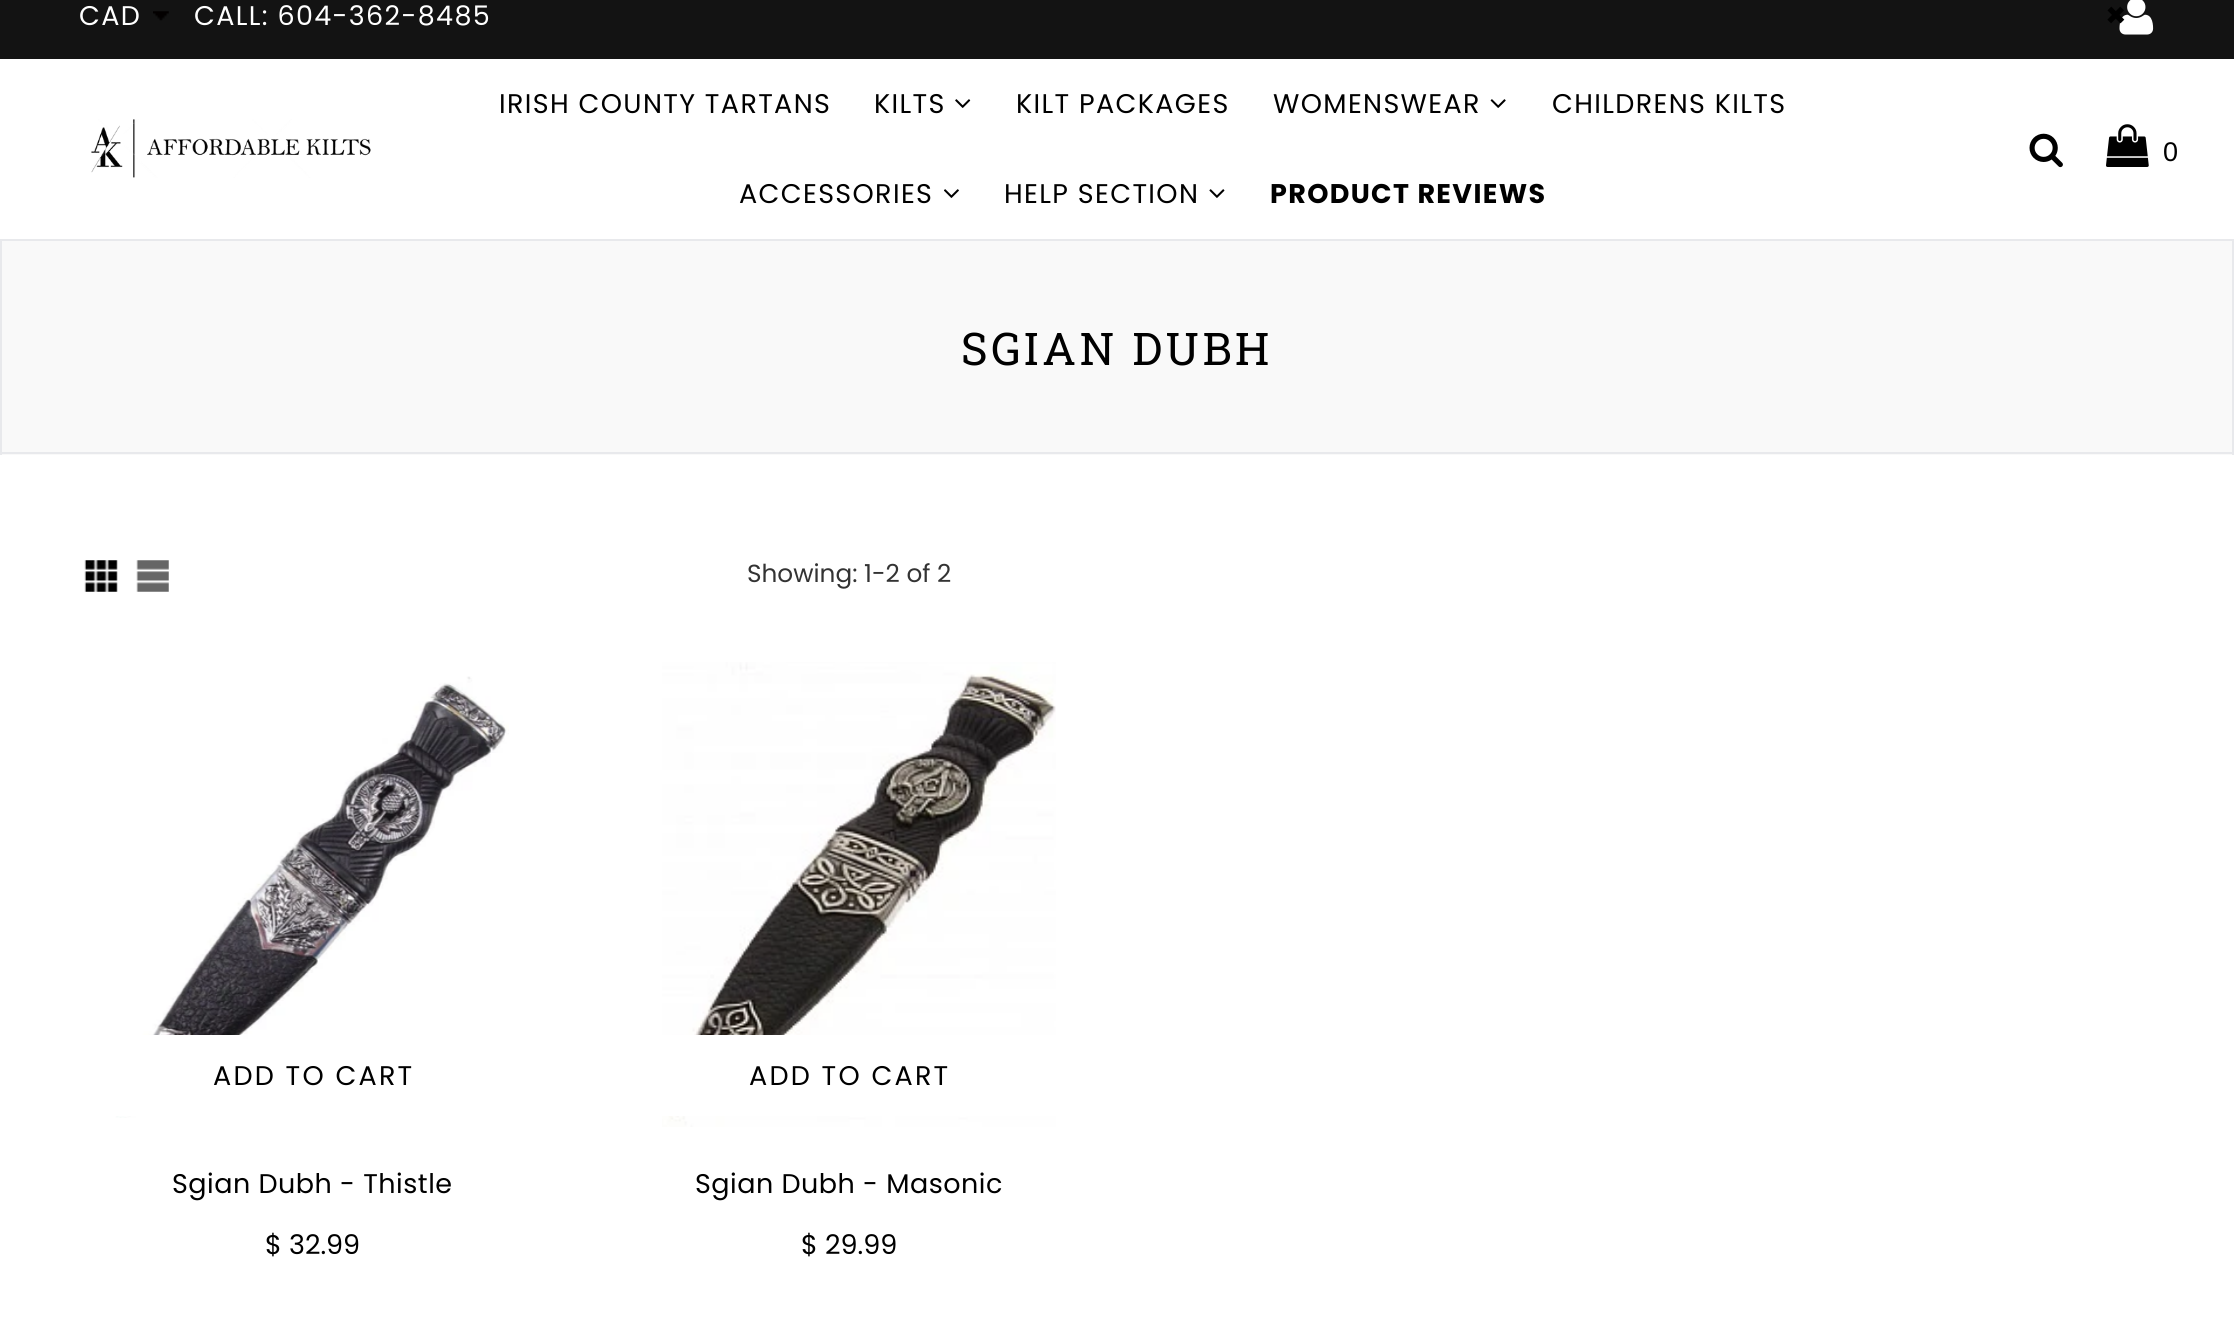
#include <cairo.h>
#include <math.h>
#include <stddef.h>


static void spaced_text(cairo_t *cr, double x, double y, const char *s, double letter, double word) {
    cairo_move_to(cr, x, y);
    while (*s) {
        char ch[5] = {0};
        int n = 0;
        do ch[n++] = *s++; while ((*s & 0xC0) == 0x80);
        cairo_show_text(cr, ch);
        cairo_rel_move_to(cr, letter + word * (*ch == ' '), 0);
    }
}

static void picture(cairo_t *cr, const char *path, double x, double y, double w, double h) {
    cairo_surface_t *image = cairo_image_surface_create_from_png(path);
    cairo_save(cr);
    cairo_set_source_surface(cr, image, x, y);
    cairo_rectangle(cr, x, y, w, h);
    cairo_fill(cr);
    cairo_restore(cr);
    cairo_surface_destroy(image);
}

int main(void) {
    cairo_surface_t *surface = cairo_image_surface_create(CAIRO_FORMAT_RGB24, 2234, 1335);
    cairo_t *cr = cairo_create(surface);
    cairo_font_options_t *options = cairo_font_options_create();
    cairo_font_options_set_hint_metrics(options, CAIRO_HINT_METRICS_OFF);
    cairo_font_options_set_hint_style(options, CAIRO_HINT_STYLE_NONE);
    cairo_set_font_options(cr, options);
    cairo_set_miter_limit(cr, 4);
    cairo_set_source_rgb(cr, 1, 1, 1);
    cairo_paint(cr);
    cairo_set_source_rgb(cr, 0.078, 0.078, 0.078);
    cairo_rectangle(cr, 0, 0, 2234, 59);
    cairo_fill(cr);
    picture(cr, "img1.png", 153, 11, 16, 10);
    cairo_select_font_face(cr, "Poppins", CAIRO_FONT_SLANT_NORMAL, CAIRO_FONT_WEIGHT_NORMAL);
    cairo_set_font_size(cr, 27);
    cairo_set_source_rgb(cr, 1, 1, 1);
    spaced_text(cr, 79, 25, "CAD", 1.35, 0);
    spaced_text(cr, 194, 25, "CALL: 604-362-8485", 1.35, 0);
    picture(cr, "img2.png", 2119, 0, 35, 35);
    cairo_select_font_face(cr, "Poppins", CAIRO_FONT_SLANT_NORMAL, CAIRO_FONT_WEIGHT_BOLD);
    cairo_set_font_size(cr, 34);
    cairo_set_source_rgb(cr, 0, 0, 0);
    cairo_move_to(cr, 2105, 27);
    cairo_show_text(cr, "×");
    cairo_set_source_rgb(cr, 0.91, 0.914, 0.922);
    cairo_rectangle(cr, 0, 239, 2234, 2);
    cairo_fill(cr);
    picture(cr, "img3.png", 91, 119, 280, 59);
    cairo_select_font_face(cr, "Poppins", CAIRO_FONT_SLANT_NORMAL, CAIRO_FONT_WEIGHT_NORMAL);
    cairo_set_font_size(cr, 27);
    cairo_set_source_rgb(cr, 0, 0, 0);
    spaced_text(cr, 499, 113, "IRISH COUNTY TARTANS", 1.35, 0);
    spaced_text(cr, 874, 113, "KILTS", 1.35, 0);
    picture(cr, "img4.png", 955, 99, 16, 9);
    spaced_text(cr, 1016, 113, "KILT PACKAGES", 1.35, 0);
    spaced_text(cr, 1273, 113, "WOMENSWEAR", 1.35, 0);
    picture(cr, "img5.png", 1490, 99, 16, 9);
    spaced_text(cr, 1552, 113, "CHILDRENS KILTS", 1.35, 0);
    spaced_text(cr, 739, 203, "ACCESSORIES", 1.35, 0);
    picture(cr, "img6.png", 944, 189, 15, 9);
    spaced_text(cr, 1004, 203, "HELP SECTION", 1.35, 0);
    picture(cr, "img7.png", 1209, 189, 16, 9);
    cairo_select_font_face(cr, "Poppins", CAIRO_FONT_SLANT_NORMAL, CAIRO_FONT_WEIGHT_BOLD);
    spaced_text(cr, 1270, 203, "PRODUCT REVIEWS", 1.35, 0);
    picture(cr, "img8.png", 2029, 133, 34, 35);
    picture(cr, "img9.png", 2106, 124, 43, 43);
    cairo_select_font_face(cr, "Liberation Sans", CAIRO_FONT_SLANT_NORMAL, CAIRO_FONT_WEIGHT_NORMAL);
    cairo_move_to(cr, 2163, 161);
    cairo_show_text(cr, "0");
    cairo_set_source_rgb(cr, 0.976, 0.976, 0.976);
    cairo_rectangle(cr, 2, 241, 2230, 214);
    cairo_fill(cr);
    cairo_set_source_rgb(cr, 0.91, 0.914, 0.922);
    cairo_rectangle(cr, 2232, 241, 2, 214);
    cairo_fill(cr);
    cairo_rectangle(cr, 0, 452, 2234, 2);
    cairo_fill(cr);
    cairo_rectangle(cr, 0, 241, 2, 214);
    cairo_fill(cr);
    cairo_select_font_face(cr, "Roboto Slab", CAIRO_FONT_SLANT_NORMAL, CAIRO_FONT_WEIGHT_NORMAL);
    cairo_set_font_size(cr, 45);
    cairo_set_source_rgb(cr, 0, 0, 0);
    spaced_text(cr, 961, 365, "SGIAN DUBH", 3.4, 0);
    picture(cr, "img10.png", 84, 560, 34, 32);
    picture(cr, "img11.png", 136, 560, 33, 32);
    cairo_select_font_face(cr, "Poppins", CAIRO_FONT_SLANT_NORMAL, CAIRO_FONT_WEIGHT_NORMAL);
    cairo_set_font_size(cr, 24.75);
    cairo_set_source_rgb(cr, 0.2, 0.2, 0.2);
    cairo_move_to(cr, 747, 582);
    cairo_show_text(cr, "Showing: 1-2 of 2");
    picture(cr, "img12.png", 115, 676, 394, 442);
    cairo_set_source_rgb(cr, 1, 1, 1);
    cairo_rectangle(cr, 115, 1035, 128, 81);
    cairo_fill(cr);
    cairo_set_font_size(cr, 27);
    cairo_set_source_rgb(cr, 0, 0, 0);
    spaced_text(cr, 213, 1085, "ADD TO CART", 2.25, 0);
    spaced_text(cr, 172, 1193, "Sgian Dubh - Thistle", 0.5, 0);
    cairo_move_to(cr, 265, 1254);
    cairo_show_text(cr, "$ 32.99");
    picture(cr, "img13.png", 662, 662, 394, 465);
    cairo_set_source_rgb(cr, 1, 1, 1);
    cairo_rectangle(cr, 662, 1035, 394, 81);
    cairo_fill(cr);
    cairo_set_source_rgb(cr, 0, 0, 0);
    spaced_text(cr, 749, 1085, "ADD TO CART", 2.25, 0);
    spaced_text(cr, 695, 1193, "Sgian Dubh - Masonic", 0.5, 0);
    cairo_move_to(cr, 801, 1254);
    cairo_show_text(cr, "$ 29.99");
    cairo_surface_write_to_png(surface, "page.png");
    cairo_font_options_destroy(options);
    cairo_destroy(cr);
    cairo_surface_destroy(surface);
    return 0;
}
